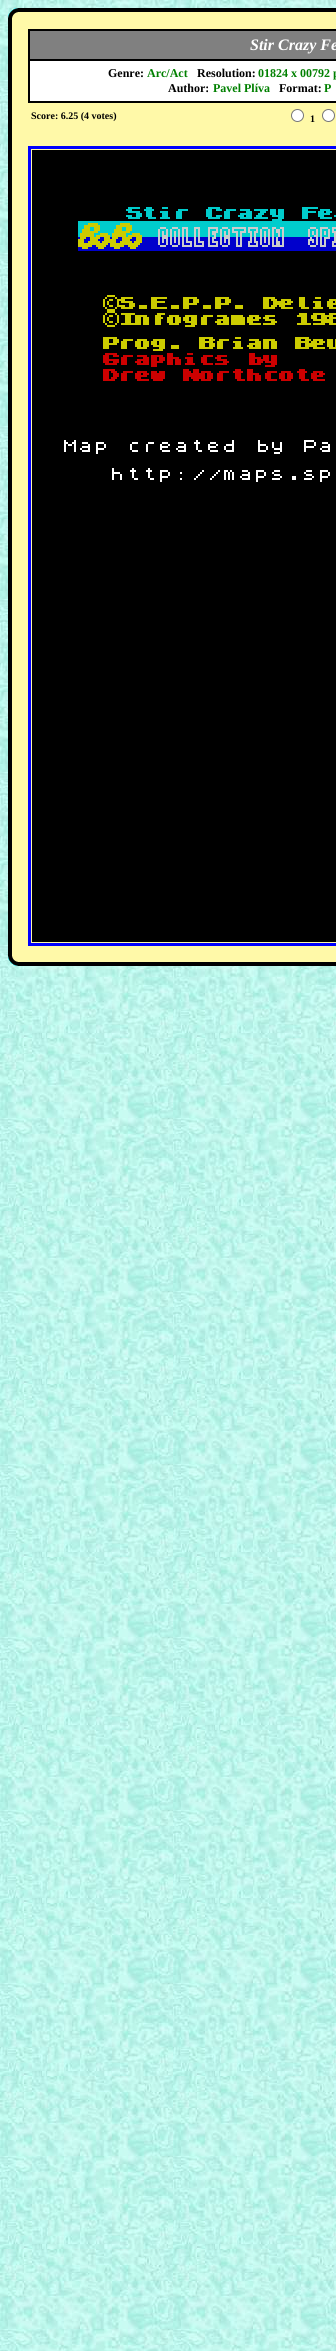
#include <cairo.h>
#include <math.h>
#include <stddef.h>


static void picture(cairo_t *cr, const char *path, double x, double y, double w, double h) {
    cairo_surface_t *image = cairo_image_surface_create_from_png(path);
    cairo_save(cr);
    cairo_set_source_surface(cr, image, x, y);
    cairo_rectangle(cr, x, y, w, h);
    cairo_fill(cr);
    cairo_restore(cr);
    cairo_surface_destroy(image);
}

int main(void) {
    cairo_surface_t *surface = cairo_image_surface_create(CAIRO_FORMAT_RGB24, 336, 2351);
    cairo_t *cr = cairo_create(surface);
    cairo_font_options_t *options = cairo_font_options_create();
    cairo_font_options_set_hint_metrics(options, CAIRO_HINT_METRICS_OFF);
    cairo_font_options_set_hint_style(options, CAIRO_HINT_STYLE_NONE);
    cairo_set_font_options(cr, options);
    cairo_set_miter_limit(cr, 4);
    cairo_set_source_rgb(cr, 1, 1, 1);
    cairo_paint(cr);
    picture(cr, "img1.png", 0, 0, 336, 2351);
    cairo_set_source_rgb(cr, 1, 0.973, 0.659);
    cairo_rectangle(cr, 12, 12, 324, 950);
    cairo_fill(cr);
    picture(cr, "img2.png", 8, 8, 6, 6);
    picture(cr, "img3.png", 8, 8, 10, 10);
    cairo_set_source_rgb(cr, 0, 0, 0);
    cairo_rectangle(cr, 18, 8, 318, 4);
    cairo_fill(cr);
    cairo_rectangle(cr, 8, 18, 4, 938);
    cairo_fill(cr);
    cairo_rectangle(cr, 28.5, 29.5, 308, 73);
    cairo_set_line_width(cr, 1);
    cairo_stroke(cr);
    cairo_set_source_rgb(cr, 0.502, 0.502, 0.502);
    cairo_rectangle(cr, 29.5, 30.5, 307, 29);
    cairo_fill_preserve(cr);
    cairo_set_source_rgb(cr, 0, 0, 0);
    cairo_stroke(cr);
    cairo_select_font_face(cr, "Liberation Serif", CAIRO_FONT_SLANT_ITALIC, CAIRO_FONT_WEIGHT_BOLD);
    cairo_set_font_size(cr, 16);
    cairo_set_source_rgb(cr, 1, 1, 1);
    cairo_move_to(cr, 250, 50);
    cairo_show_text(cr, "Stir Crazy Fe");
    cairo_rectangle(cr, 29.5, 60.5, 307, 41);
    cairo_fill_preserve(cr);
    cairo_set_source_rgb(cr, 0, 0, 0);
    cairo_stroke(cr);
    cairo_select_font_face(cr, "Liberation Serif", CAIRO_FONT_SLANT_NORMAL, CAIRO_FONT_WEIGHT_BOLD);
    cairo_set_font_size(cr, 12);
    cairo_move_to(cr, 108, 77);
    cairo_show_text(cr, "Genre:");
    cairo_set_source_rgb(cr, 0, 0.502, 0);
    cairo_move_to(cr, 147, 77);
    cairo_show_text(cr, "Arc/Act");
    cairo_set_source_rgb(cr, 0, 0, 0);
    cairo_move_to(cr, 197, 77);
    cairo_show_text(cr, "Resolution:");
    cairo_set_source_rgb(cr, 0, 0.502, 0);
    cairo_move_to(cr, 258, 77);
    cairo_show_text(cr, "01824 x 00792 p");
    cairo_set_source_rgb(cr, 0, 0, 0);
    cairo_move_to(cr, 168, 92);
    cairo_show_text(cr, "Author:");
    cairo_set_source_rgb(cr, 0, 0.502, 0);
    cairo_move_to(cr, 213, 92);
    cairo_show_text(cr, "Pavel Plíva");
    cairo_set_source_rgb(cr, 0, 0, 0);
    cairo_move_to(cr, 279, 92);
    cairo_show_text(cr, "Format:");
    cairo_set_source_rgb(cr, 0, 0.502, 0);
    cairo_move_to(cr, 324, 92);
    cairo_show_text(cr, "P");
    cairo_set_font_size(cr, 10);
    cairo_set_source_rgb(cr, 0, 0, 0);
    cairo_move_to(cr, 31, 119);
    cairo_show_text(cr, "Score: 6.25 (4 votes)");
    cairo_set_source_rgb(cr, 1, 1, 1);
    cairo_new_path(cr);
    cairo_arc(cr, 297.5, 115.5, 6, 0, 2 * M_PI);
    cairo_fill_preserve(cr);
    cairo_set_source_rgb(cr, 0.463, 0.463, 0.463);
    cairo_stroke(cr);
    cairo_set_source_rgb(cr, 0, 0, 0);
    cairo_move_to(cr, 310, 122);
    cairo_show_text(cr, "1");
    cairo_set_source_rgb(cr, 1, 1, 1);
    cairo_new_path(cr);
    cairo_arc(cr, 328.5, 115.5, 6, 0, 2 * M_PI);
    cairo_fill_preserve(cr);
    cairo_set_source_rgb(cr, 0.463, 0.463, 0.463);
    cairo_stroke(cr);
    cairo_rectangle(cr, 29.5, 147.5, 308, 797);
    cairo_set_source_rgb(cr, 0, 0, 1);
    cairo_set_line_width(cr, 3);
    cairo_stroke(cr);
    picture(cr, "img4.png", 32, 150, 304, 792);
    picture(cr, "img5.png", 8, 960, 6, 6);
    picture(cr, "img6.png", 8, 956, 10, 10);
    cairo_set_source_rgb(cr, 0, 0, 0);
    cairo_rectangle(cr, 18, 962, 318, 4);
    cairo_fill(cr);
    cairo_surface_write_to_png(surface, "page.png");
    cairo_font_options_destroy(options);
    cairo_destroy(cr);
    cairo_surface_destroy(surface);
    return 0;
}
